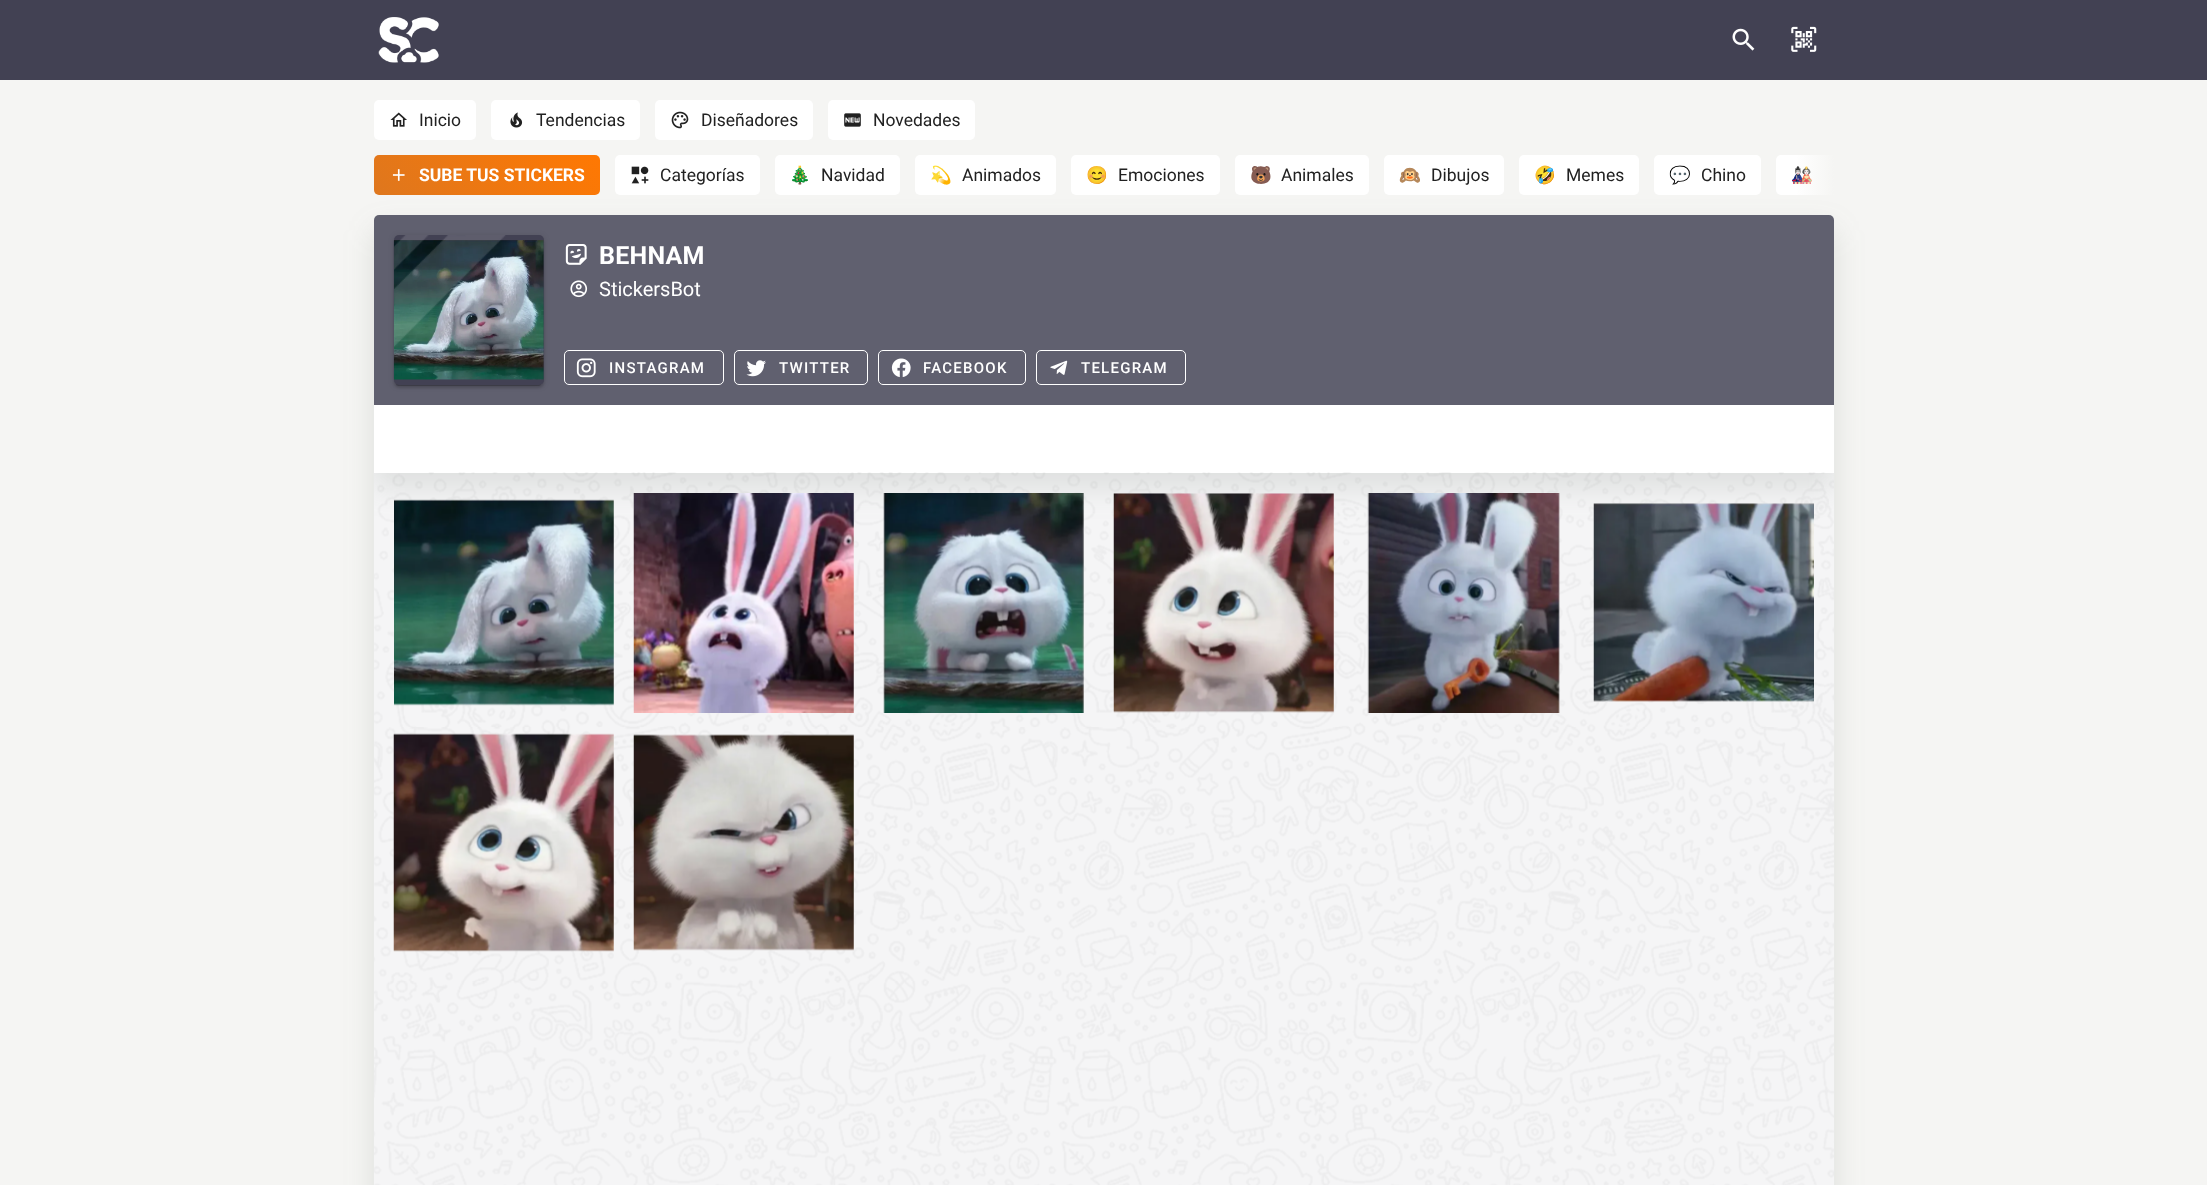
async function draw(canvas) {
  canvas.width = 2207;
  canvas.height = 1185;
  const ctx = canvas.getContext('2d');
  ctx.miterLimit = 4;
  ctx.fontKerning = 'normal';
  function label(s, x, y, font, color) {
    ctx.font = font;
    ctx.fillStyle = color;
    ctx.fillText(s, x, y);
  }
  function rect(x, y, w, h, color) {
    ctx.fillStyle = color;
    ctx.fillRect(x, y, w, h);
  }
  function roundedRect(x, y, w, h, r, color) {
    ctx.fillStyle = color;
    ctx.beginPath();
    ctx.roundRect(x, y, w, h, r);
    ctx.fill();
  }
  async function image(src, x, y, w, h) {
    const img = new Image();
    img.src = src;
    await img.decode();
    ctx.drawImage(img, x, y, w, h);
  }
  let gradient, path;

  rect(0, 0, 2207, 1185, '#f5f5f3');
  rect(0, 0, 2207, 80, '#424153');
  await image('assets/img1.png', 378, 17, 61, 46);
  await image('assets/img2.png', 1732, 28, 23, 23);
  await image('assets/img3.png', 1791, 26, 26, 26);
  roundedRect(374, 100, 102, 40, 5, '#fff');
  await image('assets/img4.png', 390, 112, 17, 15);
  label('Inicio', 419, 126, '17.5px Roboto', '#212121');
  roundedRect(491, 100, 149, 40, 5, '#fff');
  await image('assets/img5.png', 510, 112, 13, 16);
  label('Tendencias', 536, 126, '17.5px Roboto', '#212121');
  roundedRect(655, 100, 158, 40, 5, '#fff');
  await image('assets/img6.png', 671, 111, 18, 18);
  label('Diseñadores', 701, 126, '17.5px Roboto', '#212121');
  roundedRect(828, 100, 147, 40, 5, '#fff');
  await image('assets/img7.png', 844, 113, 17, 14);
  label('Novedades', 873, 126, '17.5px Roboto', '#212121');
  ctx.fillStyle = '#666e6229';
  ctx.filter = 'blur(15px)';
  ctx.beginPath();
  ctx.roundRect(374, 230, 1460, 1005, 5);
  ctx.fill();
  ctx.filter = 'none';
  gradient = ctx.createLinearGradient(420, 242, 553, 108);
  gradient.addColorStop(0, '#de771e');
  gradient.addColorStop(1, '#ff7802');
  ctx.fillStyle = gradient;
  ctx.beginPath();
  ctx.roundRect(374, 155, 226, 40, 5);
  ctx.fill();
  await image('assets/img8.png', 392, 169, 13, 12);
  label('SUBE TUS STICKERS', 419, 181, 'bold 17.5px Roboto', '#fff');
  roundedRect(615, 155, 145, 40, 5, '#fff');
  await image('assets/img9.png', 631, 166, 18, 18);
  label('Categorías', 660, 181, '17.5px Roboto', '#212121');
  roundedRect(775, 155, 125, 40, 5, '#fff');
  label('🎄', 789, 181, '17.5px Noto Color Emoji', '#212121');
  label('Navidad', 821, 181, '17.5px Roboto', '#212121');
  roundedRect(915, 155, 141, 40, 5, '#fff');
  label('💫', 930, 181, '17.5px Noto Color Emoji', '#212121');
  label('Animados', 962, 181, '17.5px Roboto', '#212121');
  roundedRect(1071, 155, 149, 40, 5, '#fff');
  label('😊', 1086, 181, '17.5px Noto Color Emoji', '#212121');
  label('Emociones', 1118, 181, '17.5px Roboto', '#212121');
  roundedRect(1235, 155, 134, 40, 5, '#fff');
  label('🐻', 1250, 181, '17.5px Noto Color Emoji', '#212121');
  label('Animales', 1281, 181, '17.5px Roboto', '#212121');
  roundedRect(1384, 155, 120, 40, 5, '#fff');
  label('🙉', 1399, 181, '17.5px Noto Color Emoji', '#212121');
  label('Dibujos', 1431, 181, '17.5px Roboto', '#212121');
  roundedRect(1519, 155, 120, 40, 5, '#fff');
  label('🤣', 1534, 181, '17.5px Noto Color Emoji', '#212121');
  label('Memes', 1566, 181, '17.5px Roboto', '#212121');
  roundedRect(1654, 155, 107, 40, 5, '#fff');
  label('💬', 1669, 181, '17.5px Noto Color Emoji', '#212121');
  label('Chino', 1701, 181, '17.5px Roboto', '#212121');
  ctx.fillStyle = '#fff';
  ctx.beginPath();
  ctx.roundRect(1776, 155, 58, 40, [5, 0, 0, 5]);
  ctx.fill();
  label('🎎', 1791, 181, '17.5px Noto Color Emoji', '#212121');
  gradient = ctx.createLinearGradient(1796, 175, 1834, 175);
  gradient.addColorStop(0, '#f5f5f300');
  gradient.addColorStop(1, '#f5f5f3');
  ctx.fillStyle = gradient;
  ctx.fillRect(1797, 155, 37, 40);
  roundedRect(374, 215, 1460, 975, 5, '#fff');
  ctx.save();
  ctx.beginPath();
  ctx.roundRect(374, 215, 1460, 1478, 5);
  ctx.clip();
  path = new Path2D('M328 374H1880V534H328ZM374 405H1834V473H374Z');
  ctx.clip(path, 'evenodd');
  ctx.fillStyle = '#666e6229';
  ctx.filter = 'blur(15px)';
  ctx.beginPath();
  ctx.rect(374, 420, 1460, 68);
  ctx.fill();
  ctx.filter = 'none';
  ctx.restore();
  ctx.fillStyle = '#424153d6';
  ctx.beginPath();
  ctx.roundRect(374, 215, 1460, 190, [5, 5, 0, 0]);
  ctx.fill();
  ctx.fillStyle = '#0000001f';
  ctx.filter = 'blur(3px)';
  ctx.beginPath();
  ctx.roundRect(394, 236, 150, 150, 5);
  ctx.fill();
  ctx.filter = 'none';
  ctx.fillStyle = '#00000024';
  ctx.filter = 'blur(1px)';
  ctx.beginPath();
  ctx.roundRect(394, 238, 150, 150, 5);
  ctx.fill();
  ctx.filter = 'none';
  ctx.fillStyle = '#00000033';
  ctx.filter = 'blur(0.5px)';
  ctx.beginPath();
  ctx.roundRect(396, 241, 145, 145, 2.5);
  ctx.fill();
  ctx.filter = 'none';
  roundedRect(394, 235, 150, 150, 5, '#424153');
  await image('assets/img11.png', 393, 240, 151, 140);
  await image('assets/img10.png', 394, 235, 112, 112);
  await image('assets/img12.png', 565, 244, 22, 21);
  ctx.letterSpacing = '0.25px';
  label('BEHNAM', 599, 264, 'bold 25px Roboto', '#fff');
  await image('assets/img13.png', 570, 280, 18, 18);
  ctx.letterSpacing = '0px';
  label('StickersBot', 599, 296, '20px Roboto', '#fff');
  ctx.beginPath();
  ctx.roundRect(564.5, 350.5, 159, 34, 4.5);
  ctx.strokeStyle = '#fff';
  ctx.stroke();
  await image('assets/img14.png', 576, 358, 20, 20);
  ctx.letterSpacing = '1.25px';
  label('INSTAGRAM', 609, 373, '500 15px Roboto', '#fff');
  ctx.beginPath();
  ctx.roundRect(734.5, 350.5, 133, 34, 4.5);
  ctx.stroke();
  await image('assets/img15.png', 746, 360, 20, 17);
  label('TWITTER', 779, 373, '500 15px Roboto', '#fff');
  ctx.beginPath();
  ctx.roundRect(878.5, 350.5, 147, 34, 4.5);
  ctx.stroke();
  await image('assets/img16.png', 891, 358, 20, 20);
  label('FACEBOOK', 923, 373, '500 15px Roboto', '#fff');
  ctx.beginPath();
  ctx.roundRect(1036.5, 350.5, 149, 34, 4.5);
  ctx.stroke();
  await image('assets/img17.png', 1050, 360, 18, 15);
  label('TELEGRAM', 1081, 373, '500 15px Roboto', '#fff');
  rect(374, 473, 1460, 712, '#4241530d');
  await image('assets/img18.png', 374, 472, 1460, 713);
  await image('assets/img19.png', 394, 499, 220, 207);
  await image('assets/img20.png', 633, 493, 221, 220);
  await image('assets/img21.png', 883, 493, 201, 220);
  await image('assets/img22.png', 1113, 493, 221, 220);
  await image('assets/img23.png', 1367, 493, 193, 220);
  await image('assets/img24.png', 1593, 503, 221, 199);
  await image('assets/img25.png', 393, 733, 221, 219);
  await image('assets/img26.png', 633, 734, 221, 217);
}

draw(document.querySelector('canvas'));
